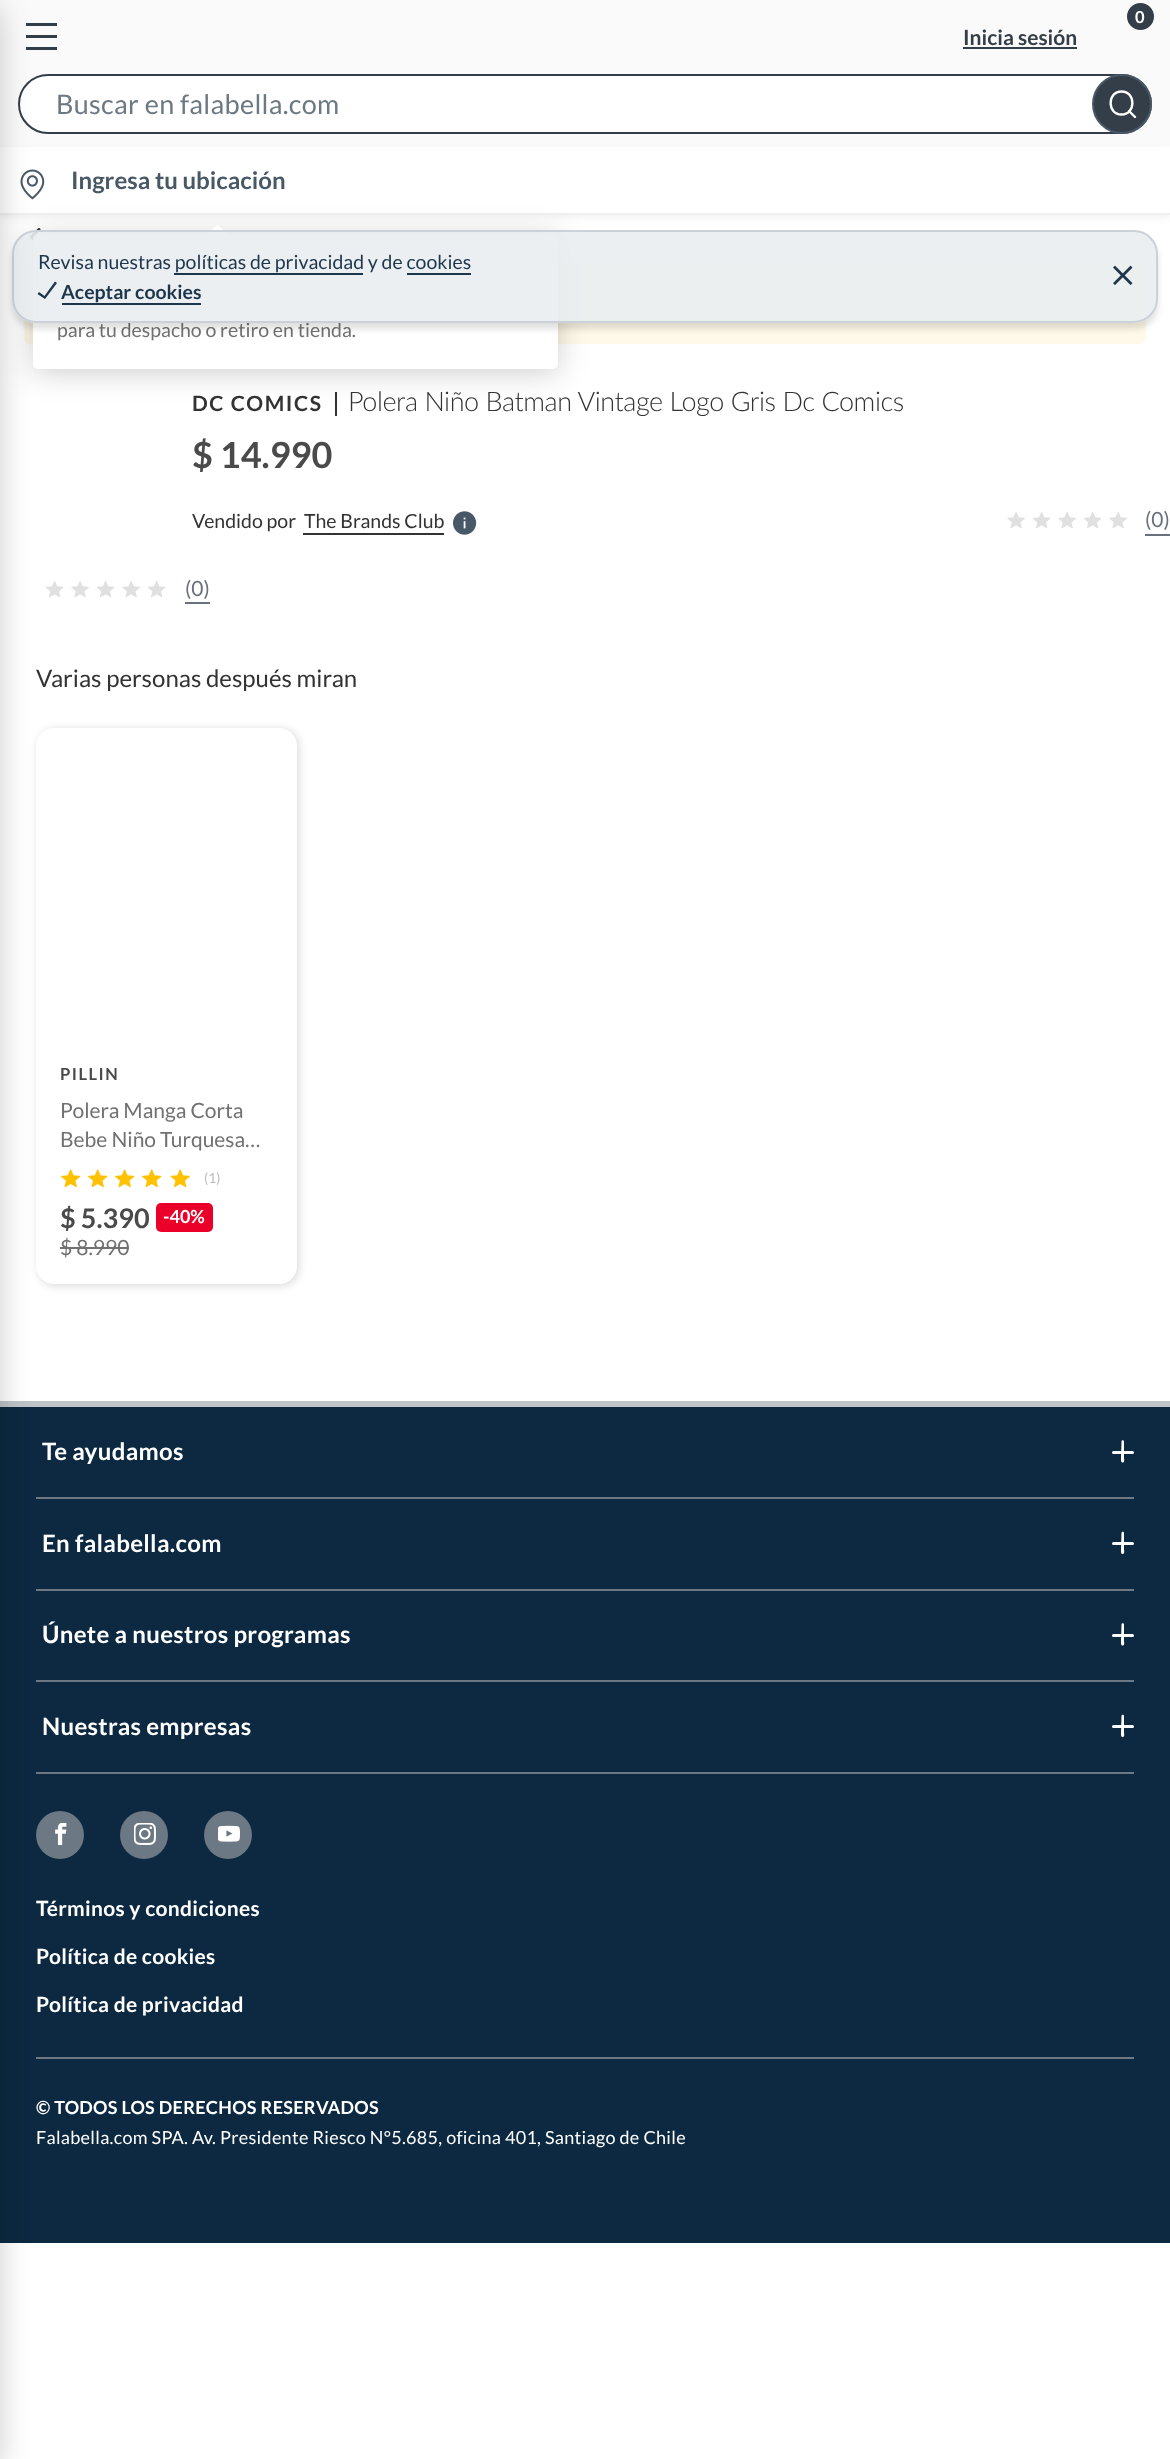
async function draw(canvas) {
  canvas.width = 1170;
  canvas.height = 2459;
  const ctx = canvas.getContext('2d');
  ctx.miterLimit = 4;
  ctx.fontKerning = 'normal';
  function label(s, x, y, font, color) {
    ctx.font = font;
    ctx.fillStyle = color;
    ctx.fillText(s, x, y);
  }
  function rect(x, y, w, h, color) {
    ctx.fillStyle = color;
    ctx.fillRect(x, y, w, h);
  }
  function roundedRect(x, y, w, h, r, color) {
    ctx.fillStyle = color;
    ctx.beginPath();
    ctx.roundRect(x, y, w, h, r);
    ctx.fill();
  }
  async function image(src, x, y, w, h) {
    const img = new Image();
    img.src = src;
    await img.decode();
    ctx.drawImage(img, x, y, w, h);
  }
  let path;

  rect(0, 0, 1170, 2459, '#fff');
  rect(0, 0, 1170, 147, '#fafafa');
  rect(26, 35, 31, 3, '#343e49');
  rect(26, 23, 31, 3, '#343e49');
  rect(26, 47, 31, 3, '#343e49');
  ctx.fillStyle = '#fff';
  ctx.beginPath();
  ctx.roundRect(19, 75, 1132, 58, 29);
  ctx.fill();
  ctx.strokeStyle = '#343e49';
  ctx.lineWidth = 2;
  ctx.stroke();
  ctx.fillStyle = '#0000000d';
  ctx.filter = 'blur(3px)';
  ctx.beginPath();
  ctx.rect(0, 150, 1170, 68);
  ctx.fill();
  ctx.filter = 'none';
  rect(0, 147, 1170, 66, '#fff');
  rect(0, 213, 1170, 2, '#f0f0f0');
  await image('assets/img1.png', 20, 169, 25, 31);
  await image('assets/img3.png', 30, 228, 11, 13);
  roundedRect(24, 263, 1122, 81, 6, '#fff9e9');
  rect(335, 392, 2, 24, '#333');
  ctx.fillStyle = '#00000033';
  ctx.filter = 'blur(15px)';
  ctx.beginPath();
  ctx.roundRect(33, 237, 525, 135, 5);
  ctx.fill();
  ctx.filter = 'none';
  roundedRect(33, 234, 525, 135, 5, '#fff');
  path = new Path2D('M229.5 235.5H205.5L217.5 225Z');
  ctx.fill(path);
  label('para tu despacho o retiro en tienda.', 57, 337, '19.5px Lato', '#717171');
  ctx.save();
  path = new Path2D('M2 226H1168V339H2ZM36 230H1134C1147.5 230 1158 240.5 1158 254V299C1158 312.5 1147.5 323 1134 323H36C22.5 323 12 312.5 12 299V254C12 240.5 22.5 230 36 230Z');
  ctx.clip(path, 'evenodd');
  ctx.fillStyle = '#0000001f';
  ctx.filter = 'blur(3px)';
  ctx.beginPath();
  ctx.roundRect(12, 236, 1146, 93, 24);
  ctx.fill();
  ctx.filter = 'none';
  ctx.restore();
  ctx.fillStyle = '#e9edf1e6';
  ctx.beginPath();
  ctx.roundRect(13, 231, 1144, 91, 23);
  ctx.fill();
  ctx.strokeStyle = '#cad1d9';
  ctx.stroke();
  ctx.fillStyle = '#1e364b';
  path = new Path2D('M44.5 296L55 281.5L57 283L45 299L37.5 294L39 292Z');
  ctx.fill(path);
  await image('assets/img7.png', 45, 581, 19, 17);
  ctx.fillStyle = '#00000024';
  ctx.filter = 'blur(4px)';
  ctx.beginPath();
  ctx.roundRect(38, 729, 261, 557, 18);
  ctx.fill();
  ctx.filter = 'none';
  roundedRect(36, 728, 261, 556, 18, '#fff');
  rect(0, 1407, 1170, 836, '#0c2941');
  rect(0, 1401, 1170, 6, '#bfc4c9');
  rect(36, 1497, 1098, 2, '#6c7883');
  rect(36, 1589, 1098, 2, '#6c7883');
  rect(36, 1680, 1098, 2, '#6c7883');
  rect(36, 1772, 1098, 2, '#6c7883');
  ctx.beginPath();
  ctx.arc(60, 1835, 24, 0, 2 * Math.PI);
  ctx.fill();
  rect(36, 2057, 1098, 2, '#6c7883');
  ctx.fillStyle = '#00000033';
  ctx.filter = 'blur(15px)';
  ctx.beginPath();
  ctx.rect(-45, 8, 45, 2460);
  ctx.fill();
  ctx.filter = 'none';
  ctx.fillStyle = '#343e49';
  ctx.beginPath();
  ctx.arc(1140.5, 16.5, 12.5, 0, 2 * Math.PI);
  ctx.fill();
  ctx.strokeStyle = '#343e49';
  ctx.stroke();
  label('0', 1135, 23, 'bold 16.5px Lato', '#fff');
  label('Inicia sesión', 963, 45, 'bold 21px Lato', '#343e49');
  rect(963, 47, 114, 2, '#343e49');
  ctx.letterSpacing = '0.3px';
  label('Buscar en falabella.com', 56, 114, '27px Lato', '#6c7883');
  ctx.fillStyle = '#343e49';
  ctx.beginPath();
  ctx.arc(1122, 104, 29, 0, 2 * Math.PI);
  ctx.fill();
  ctx.strokeStyle = '#495867';
  ctx.stroke();
  path = new Path2D('M1121.5 114.5C1136 114.5 1136 91.5 1121.5 91.5C1107 91.5 1107 114.5 1121.5 114.5ZM1135 117L1129 111');
  ctx.strokeStyle = '#fff';
  ctx.lineWidth = 2.4;
  ctx.lineCap = 'round';
  ctx.lineJoin = 'round';
  ctx.stroke(path);
  ctx.letterSpacing = '0px';
  label('Ingresa tu ubicación', 71, 189, 'bold 24px Lato', '#495867');
  label('Revisa nuestras políticas de privacidad y de cookies', 38, 269, '19.5px Lato', '#1e364b');
  rect(174, 273, 189, 2, '#1e364b');
  rect(407, 273, 64, 2, '#1e364b');
  label('Aceptar cookies', 61, 299, 'bold 19.5px Lato', '#1e364b');
  rect(62, 303, 139, 2, '#1e364b');
  await image('assets/img2.png', 1113, 265, 20, 20);
  ctx.letterSpacing = '1.6px';
  label('DC COMICS', 192, 411, 'bold 21px Lato', '#333');
  ctx.letterSpacing = '-0.45px';
  label('Polera Niño Batman Vintage Logo Gris Dc Comics', 348, 411, '300 27px Lato', '#333');
  ctx.letterSpacing = '0px';
  label('$ 14.990', 192, 468, 'bold 36px Lato', '#4a4a4a');
  label('Vendido por', 192, 528, '19.5px Lato', '#333');
  label('The Brands Club', 304, 528, '19.5px Lato', '#333');
  rect(303, 533, 141, 2, '#333');
  await image('assets/img4.png', 453, 511, 24, 24);
  await image('assets/img5.png', 1007, 512, 18, 17);
  await image('assets/img6.png', 1032, 512, 18, 17);
  await image('assets/img5.png', 1058, 512, 18, 17);
  await image('assets/img6.png', 1083, 512, 18, 17);
  await image('assets/img5.png', 1109, 512, 18, 17);
  rect(1145, 534, 25, 2, '#68717d');
  label('(0)', 1145, 527, '21px Lato', '#68717d');
  await image('assets/img5.png', 71, 581, 18, 17);
  await image('assets/img7.png', 96, 581, 19, 17);
  await image('assets/img5.png', 122, 581, 18, 17);
  await image('assets/img7.png', 147, 581, 19, 17);
  rect(185, 602, 25, 2, '#68717d');
  label('(0)', 185, 596, '21px Lato', '#68717d');
  label('Varias personas después miran', 36, 687, '24px Lato', '#333');
  ctx.letterSpacing = '1.5px';
  label('PILLIN', 60, 1080, 'bold 16.5px Lato', '#4a4a4a');
  ctx.letterSpacing = '0px';
  label('Polera Manga Corta', 60, 1118, '21px Lato', '#717171');
  label('Bebe Niño Turquesa…', 60, 1147, '21px Lato', '#717171');
  await image('assets/img8.png', 61, 1169, 20, 19);
  await image('assets/img8.png', 88, 1169, 20, 19);
  await image('assets/img8.png', 115, 1169, 20, 19);
  await image('assets/img8.png', 142, 1169, 20, 19);
  await image('assets/img9.png', 170, 1169, 20, 19);
  label('(1)', 204, 1183, '14px Lato', '#bbb');
  label('$ 5.390', 60, 1228, 'bold 27px Lato', '#4a4a4a');
  roundedRect(156, 1203, 57, 29, 5, '#eb0029');
  label('-40%', 163, 1223, 'bold 18px Lato', '#fff');
  label('$ 8.990', 60, 1255, '21px Lato', '#717171');
  rect(60, 1247, 69, 2, '#717171');
  ctx.letterSpacing = '0.3px';
  label('Te ayudamos', 42, 1460, 'bold 24px Lato', '#fff');
  roundedRect(1112, 1451, 22, 3, 1.5, '#fff');
  path = new Path2D('M1124 1441.5V1458C1124 1459 1125 1462 1123 1462.5C1120.5 1463 1121 1459 1121 1458L1121.5 1441.5C1121.5 1439.5 1124 1440 1124 1441.5Z');
  ctx.fill(path);
  label('En falabella.com', 42, 1552, 'bold 24px Lato', '#fff');
  roundedRect(1112, 1542, 22, 3, 1.5, '#fff');
  path = new Path2D('M1124 1533V1549.5C1124 1550.5 1125 1553.5 1123 1554C1120.5 1554.5 1121 1550.5 1121 1549.5L1121.5 1533C1121.5 1531 1124 1531.5 1124 1533Z');
  ctx.fill(path);
  label('Únete a nuestros programas', 42, 1643, 'bold 24px Lato', '#fff');
  roundedRect(1112, 1634, 22, 3, 1.5, '#fff');
  path = new Path2D('M1124 1624.5V1641C1124 1642 1125 1645 1123 1645.5C1120.5 1646 1121 1642 1121 1641L1121.5 1624.5C1121.5 1622.5 1124 1623 1124 1624.5Z');
  ctx.fill(path);
  label('Nuestras empresas', 42, 1735, 'bold 24px Lato', '#fff');
  roundedRect(1112, 1725, 22, 3, 1.5, '#fff');
  path = new Path2D('M1124 1716V1732.5C1124 1733.5 1125 1736.5 1123 1737C1120.5 1737.5 1121 1733.5 1121 1732.5L1121.5 1716C1121.5 1714 1124 1714.5 1124 1716Z');
  ctx.fill(path);
  await image('assets/img10.png', 55, 1823, 12, 22);
  ctx.fillStyle = '#6c7883';
  ctx.beginPath();
  ctx.arc(144, 1835, 24, 0, 2 * Math.PI);
  ctx.fill();
  await image('assets/img11.png', 134, 1823, 22, 22);
  ctx.beginPath();
  ctx.arc(228, 1835, 24, 0, 2 * Math.PI);
  ctx.fill();
  await image('assets/img12.png', 218, 1825, 22, 17);
  label('Términos y condiciones', 36, 1916, 'bold 21px Lato', '#fff');
  label('Política de cookies', 36, 1964, 'bold 21px Lato', '#fff');
  label('Política de privacidad', 36, 2012, 'bold 21px Lato', '#fff');
  label('© TODOS LOS DERECHOS RESERVADOS', 36, 2114, 'bold 18px Lato', '#fff');
  label('Falabella.com SPA. Av. Presidente Riesco N°5.685, oficina 401, Santiago de Chile', 36, 2144, '18px Lato', '#fff');
}

draw(document.querySelector('canvas'));
